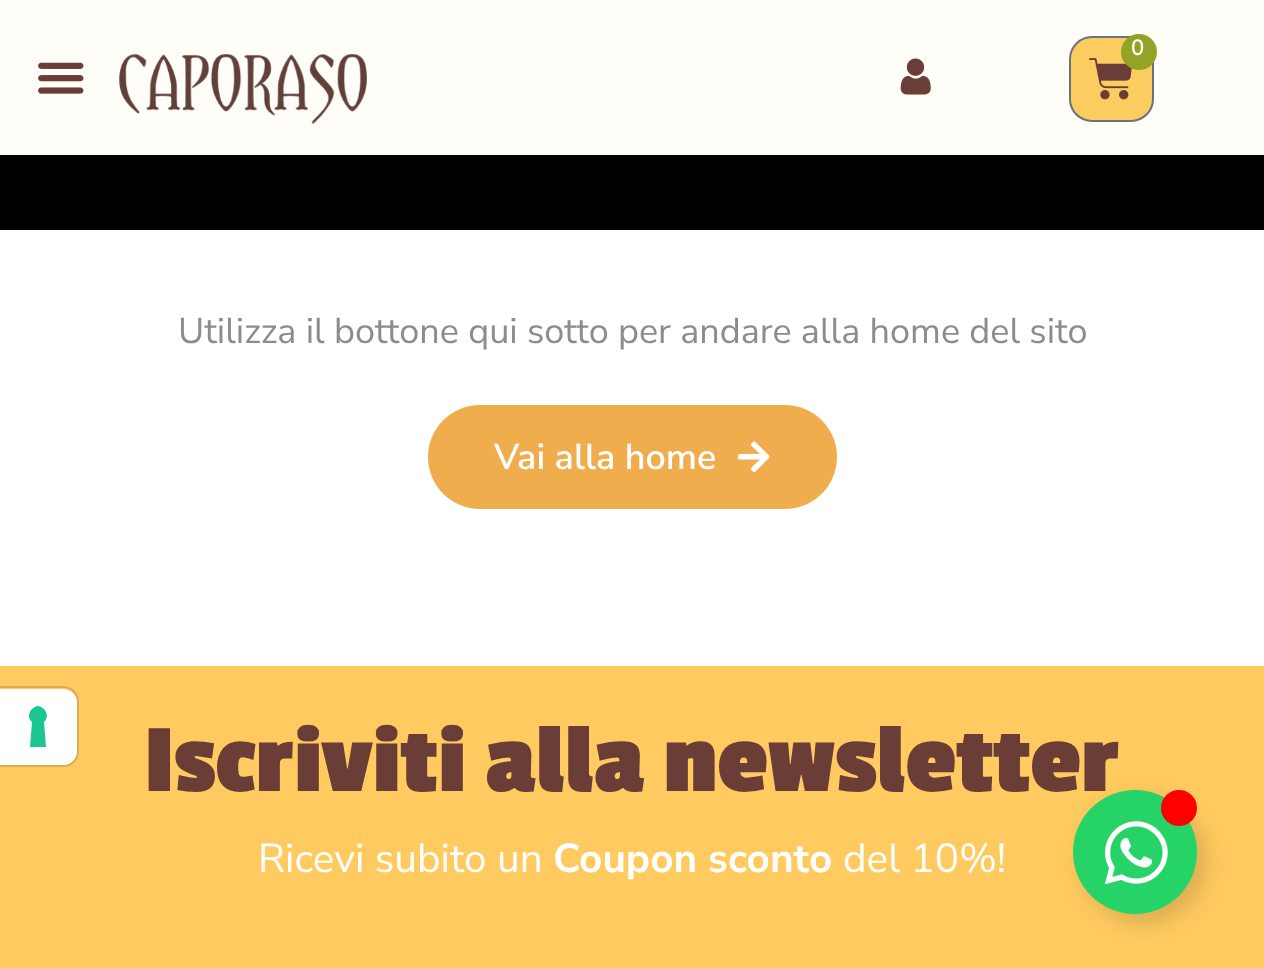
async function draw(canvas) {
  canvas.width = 1264;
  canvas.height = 968;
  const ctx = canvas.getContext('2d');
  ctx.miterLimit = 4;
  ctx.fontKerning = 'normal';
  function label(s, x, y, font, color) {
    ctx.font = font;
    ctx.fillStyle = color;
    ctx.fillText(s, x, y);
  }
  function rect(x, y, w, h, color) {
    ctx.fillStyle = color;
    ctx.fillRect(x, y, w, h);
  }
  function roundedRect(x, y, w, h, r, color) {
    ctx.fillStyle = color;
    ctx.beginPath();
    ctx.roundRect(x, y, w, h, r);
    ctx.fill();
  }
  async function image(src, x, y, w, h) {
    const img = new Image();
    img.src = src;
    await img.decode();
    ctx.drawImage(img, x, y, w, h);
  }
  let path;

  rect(0, 0, 1264, 968, '#fff');
  rect(0, 0, 1264, 155, '#fffdf7');
  ctx.fillStyle = '#fbcc60';
  ctx.beginPath();
  ctx.roundRect(1070, 37, 83, 84, 22);
  ctx.fill();
  ctx.strokeStyle = '#69727d';
  ctx.lineWidth = 2;
  ctx.stroke();
  await image('assets/img1.png', 1089, 58, 43, 42);
  ctx.fillStyle = '#92a328';
  ctx.beginPath();
  ctx.arc(1139, 52, 18, 0, 2 * Math.PI);
  ctx.fill();
  label('0', 1131, 55, '600 22px Nunito Sans', '#fff');
  await image('assets/img2.png', 900, 58, 31, 37);
  await image('assets/img3.png', 38, 62, 46, 32);
  await image('assets/img4.png', 119, 54, 248, 70);
  rect(0, 155, 1264, 75, '#000');
  label('Utilizza il bottone qui sotto per andare alla home del sito', 178, 343, '36px Nunito Sans', '#8c8c8c');
  roundedRect(428, 405, 409, 104, 52, '#f0ad4e');
  label('Vai alla home', 494, 469, '600 36px Nunito Sans', '#fff');
  await image('assets/img5.png', 738, 441, 32, 32);
  rect(0, 666, 1264, 302, '#ffcb60');
  path = new Path2D('M-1 687H63C71.5 687 78 693.5 78 702V751C78 759.5 71.5 766 63 766H-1Z');
  ctx.strokeStyle = '#d9ad52';
  ctx.stroke(path);
  ctx.fillStyle = '#fff';
  ctx.beginPath();
  ctx.roundRect(0, 689, 77, 76, [0, 14, 14, 0]);
  ctx.fill();
  ctx.fillStyle = '#1cc691';
  path = new Path2D('M38 706C46 707 50 717 44 722L46 747H30L32 722C26 717 30 707 38 706Z');
  ctx.fill(path, 'evenodd');
  label('Iscriviti alla newsletter', 144, 791, 'bold 101.25px Passion One', '#6b3d37');
  label('Ricevi subito un', 258, 872, '40.5px Nunito Sans', '#fff');
  label('Coupon sconto', 553, 872, 'bold 40.5px Nunito Sans', '#fff');
  label('del 10%!', 843, 872, '40.5px Nunito Sans', '#fff');
  ctx.fillStyle = '#00000026';
  ctx.filter = 'blur(11px)';
  ctx.beginPath();
  ctx.roundRect(1082, 799, 124, 124, 62);
  ctx.fill();
  ctx.filter = 'none';
  ctx.fillStyle = '#25d366';
  ctx.beginPath();
  ctx.arc(1135, 852, 62, 0, 2 * Math.PI);
  ctx.fill();
  await image('assets/img6.png', 1104, 821, 64, 64);
  ctx.fillStyle = '#f00';
  ctx.beginPath();
  ctx.arc(1179, 808, 18, 0, 2 * Math.PI);
  ctx.fill();
}

draw(document.querySelector('canvas'));
